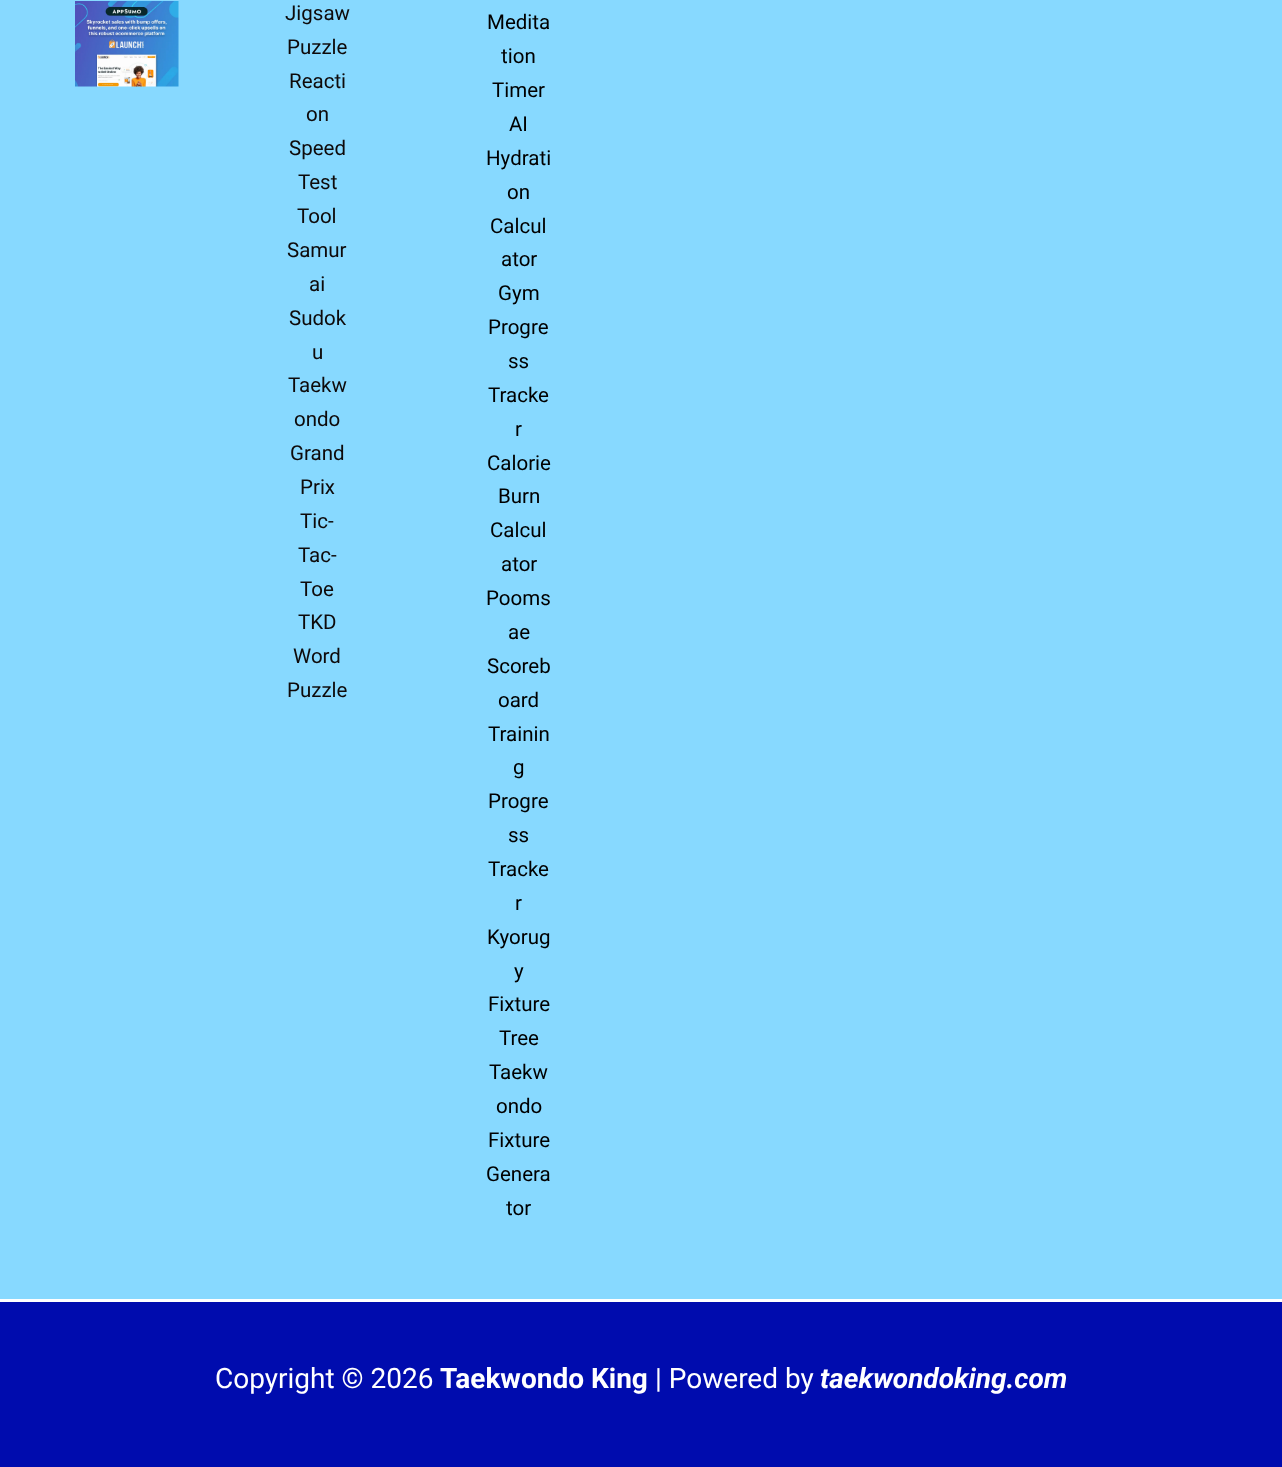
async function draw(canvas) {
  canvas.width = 1282;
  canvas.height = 1467;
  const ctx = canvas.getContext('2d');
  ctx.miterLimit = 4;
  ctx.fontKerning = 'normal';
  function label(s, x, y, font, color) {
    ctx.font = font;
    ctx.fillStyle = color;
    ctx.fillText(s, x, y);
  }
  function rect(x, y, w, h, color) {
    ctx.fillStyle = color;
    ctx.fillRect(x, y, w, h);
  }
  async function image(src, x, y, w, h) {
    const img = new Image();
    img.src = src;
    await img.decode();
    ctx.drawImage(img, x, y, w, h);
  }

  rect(0, 0, 1282, 1467, '#87d9ff');
  await image('assets/img1.png', 75, 1, 104, 86);
  label('Jigsaw', 285, 20, '20.5px Roboto', '#0e0a0a');
  label('Puzzle', 287, 54, '20.5px Roboto', '#0e0a0a');
  label('Reacti', 289, 88, '20.5px Roboto', '#0e0a0a');
  label('on', 306, 121, '20.5px Roboto', '#0e0a0a');
  label('Speed', 289, 155, '20.5px Roboto', '#0e0a0a');
  label('Test', 298, 189, '20.5px Roboto', '#0e0a0a');
  label('Tool', 297, 223, '20.5px Roboto', '#0e0a0a');
  label('Samur', 287, 257, '20.5px Roboto', '#0e0a0a');
  label('ai', 309, 291, '20.5px Roboto', '#0e0a0a');
  label('Sudok', 289, 325, '20.5px Roboto', '#0e0a0a');
  label('u', 312, 359, '20.5px Roboto', '#0e0a0a');
  label('Taekw', 288, 392, '20.5px Roboto', '#0e0a0a');
  label('ondo', 294, 426, '20.5px Roboto', '#0e0a0a');
  label('Grand', 290, 460, '20.5px Roboto', '#0e0a0a');
  label('Prix', 300, 494, '20.5px Roboto', '#0e0a0a');
  label('Tic-', 300, 528, '20.5px Roboto', '#0e0a0a');
  label('Tac-', 298, 562, '20.5px Roboto', '#0e0a0a');
  label('Toe', 300, 596, '20.5px Roboto', '#0e0a0a');
  label('TKD', 298, 629, '20.5px Roboto', '#0e0a0a');
  label('Word', 293, 663, '20.5px Roboto', '#0e0a0a');
  label('Puzzle', 287, 697, '20.5px Roboto', '#0e0a0a');
  label('Medita', 487, 29, '20.5px Roboto', '#000');
  label('tion', 501, 63, '20.5px Roboto', '#000');
  label('Timer', 492, 97, '20.5px Roboto', '#000');
  label('AI', 509, 131, '20.5px Roboto', '#000');
  label('Hydrati', 486, 165, '20.5px Roboto', '#000');
  label('on', 507, 199, '20.5px Roboto', '#000');
  label('Calcul', 490, 233, '20.5px Roboto', '#000');
  label('ator', 501, 266, '20.5px Roboto', '#000');
  label('Gym', 498, 300, '20.5px Roboto', '#000');
  label('Progre', 488, 334, '20.5px Roboto', '#000');
  label('ss', 508, 368, '20.5px Roboto', '#000');
  label('Tracke', 488, 402, '20.5px Roboto', '#000');
  label('r', 515, 436, '20.5px Roboto', '#000');
  label('Calorie', 487, 470, '20.5px Roboto', '#000');
  label('Burn', 498, 503, '20.5px Roboto', '#000');
  label('Calcul', 490, 537, '20.5px Roboto', '#000');
  label('ator', 501, 571, '20.5px Roboto', '#000');
  label('Pooms', 486, 605, '20.5px Roboto', '#000');
  label('ae', 508, 639, '20.5px Roboto', '#000');
  label('Scoreb', 487, 673, '20.5px Roboto', '#000');
  label('oard', 498, 707, '20.5px Roboto', '#000');
  label('Trainin', 488, 741, '20.5px Roboto', '#000');
  label('g', 513, 774, '20.5px Roboto', '#000');
  label('Progre', 488, 808, '20.5px Roboto', '#000');
  label('ss', 508, 842, '20.5px Roboto', '#000');
  label('Tracke', 488, 876, '20.5px Roboto', '#000');
  label('r', 515, 910, '20.5px Roboto', '#000');
  label('Kyorug', 487, 944, '20.5px Roboto', '#000');
  label('y', 514, 978, '20.5px Roboto', '#000');
  label('Fixture', 488, 1011, '20.5px Roboto', '#000');
  label('Tree', 499, 1045, '20.5px Roboto', '#000');
  label('Taekw', 489, 1079, '20.5px Roboto', '#000');
  label('ondo', 496, 1113, '20.5px Roboto', '#000');
  label('Fixture', 488, 1147, '20.5px Roboto', '#000');
  label('Genera', 486, 1181, '20.5px Roboto', '#000');
  label('tor', 506, 1215, '20.5px Roboto', '#000');
  rect(0, 1302, 1282, 165, '#000cae');
  rect(0, 1299, 1282, 3, '#fff');
  label('Copyright © 2026', 215, 1388, '28px Roboto', '#fff');
  label('Taekwondo King', 440, 1388, 'bold 28px Roboto', '#fff');
  label('| Powered by', 655, 1388, '28px Roboto', '#fff');
  label('taekwondoking.com', 820, 1388, 'italic bold 28px Roboto', '#fff');
}

draw(document.querySelector('canvas'));
